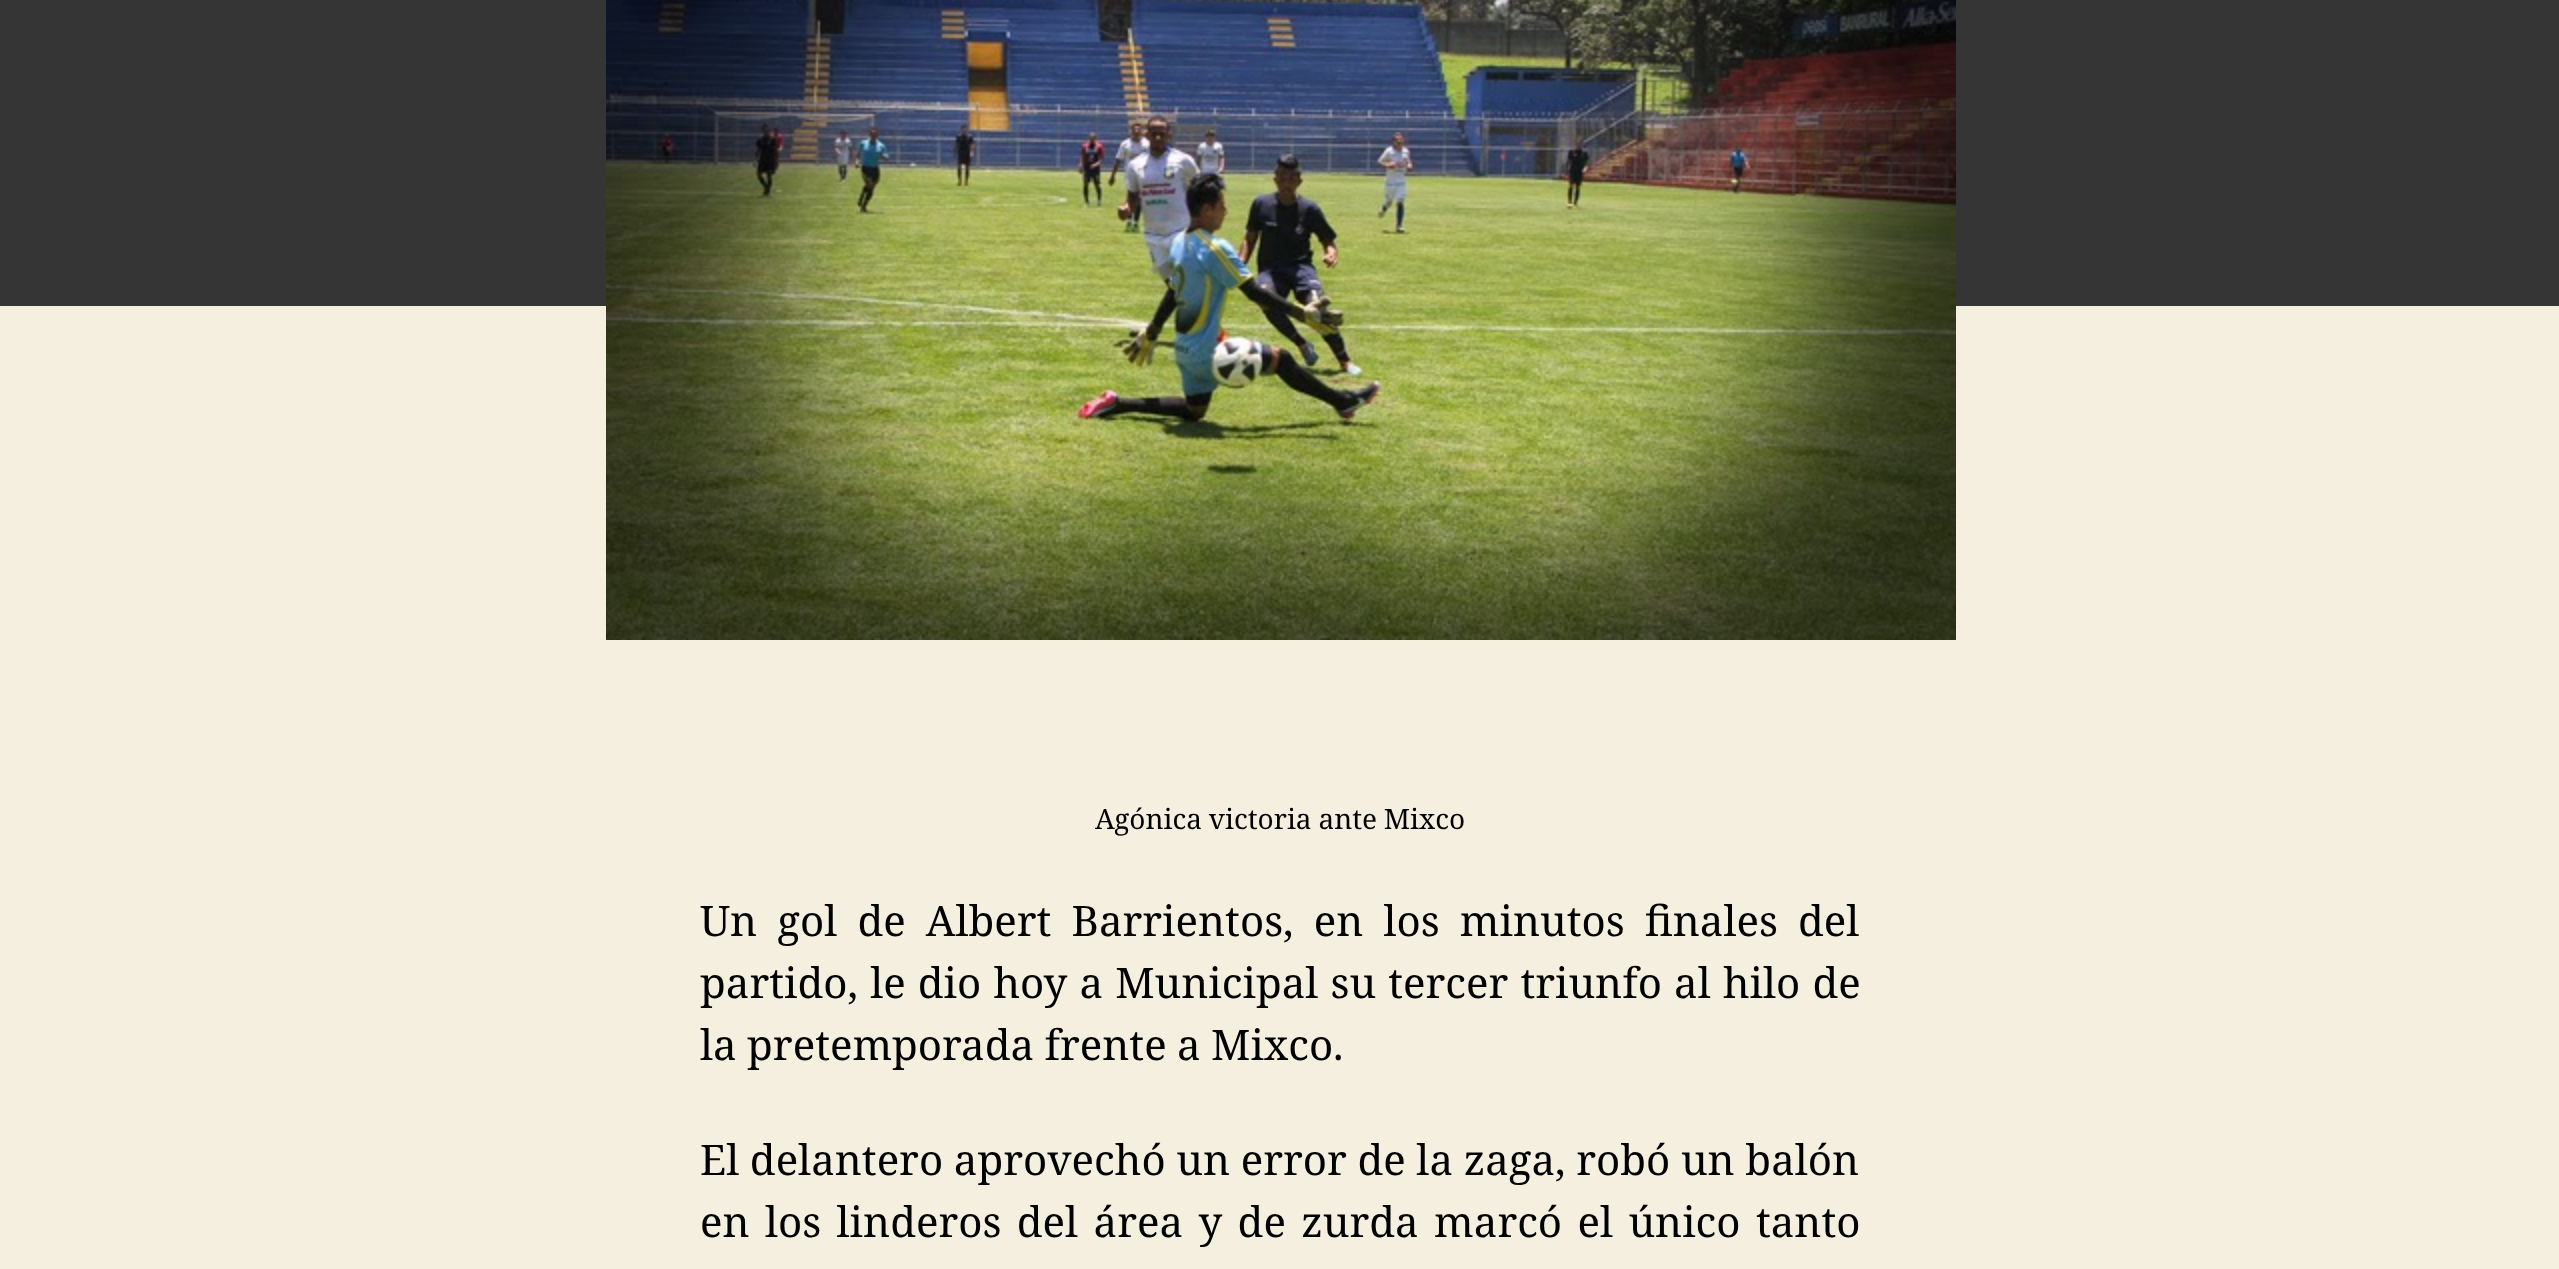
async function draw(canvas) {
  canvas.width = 2559;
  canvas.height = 1269;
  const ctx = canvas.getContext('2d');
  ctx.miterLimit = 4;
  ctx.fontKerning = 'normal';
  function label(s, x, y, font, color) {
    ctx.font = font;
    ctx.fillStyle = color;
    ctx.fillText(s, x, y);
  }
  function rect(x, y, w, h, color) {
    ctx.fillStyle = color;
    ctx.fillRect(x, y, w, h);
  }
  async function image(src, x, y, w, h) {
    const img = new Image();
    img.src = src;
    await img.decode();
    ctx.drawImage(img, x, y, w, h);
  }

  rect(0, 0, 2559, 1269, '#f5efe0');
  rect(0, 0, 2559, 306, '#353535');
  await image('assets/img1.png', 606, 0, 1350, 640);
  ctx.wordSpacing = '-0.5px';
  label('Agónica victoria ante Mixco', 1095, 829, '28px Noto Serif', '#000');
  ctx.wordSpacing = '9.25px';
  label('Un gol de Albert Barrientos, en los minutos finales del', 700, 936, '42px Noto Serif', '#000');
  ctx.wordSpacing = '1.25px';
  label('partido, le dio hoy a Municipal su tercer triunfo al hilo de', 700, 998, '42px Noto Serif', '#000');
  ctx.wordSpacing = '-0.5px';
  label('la pretemporada frente a Mixco.', 700, 1060, '42px Noto Serif', '#000');
  ctx.wordSpacing = '-0.25px';
  label('El delantero aprovechó un error de la zaga, robó un balón', 700, 1175, '42px Noto Serif', '#000');
  ctx.wordSpacing = '4.5px';
  label('en los linderos del área y de zurda marcó el único tanto', 700, 1237, '42px Noto Serif', '#000');
}

draw(document.querySelector('canvas'));
